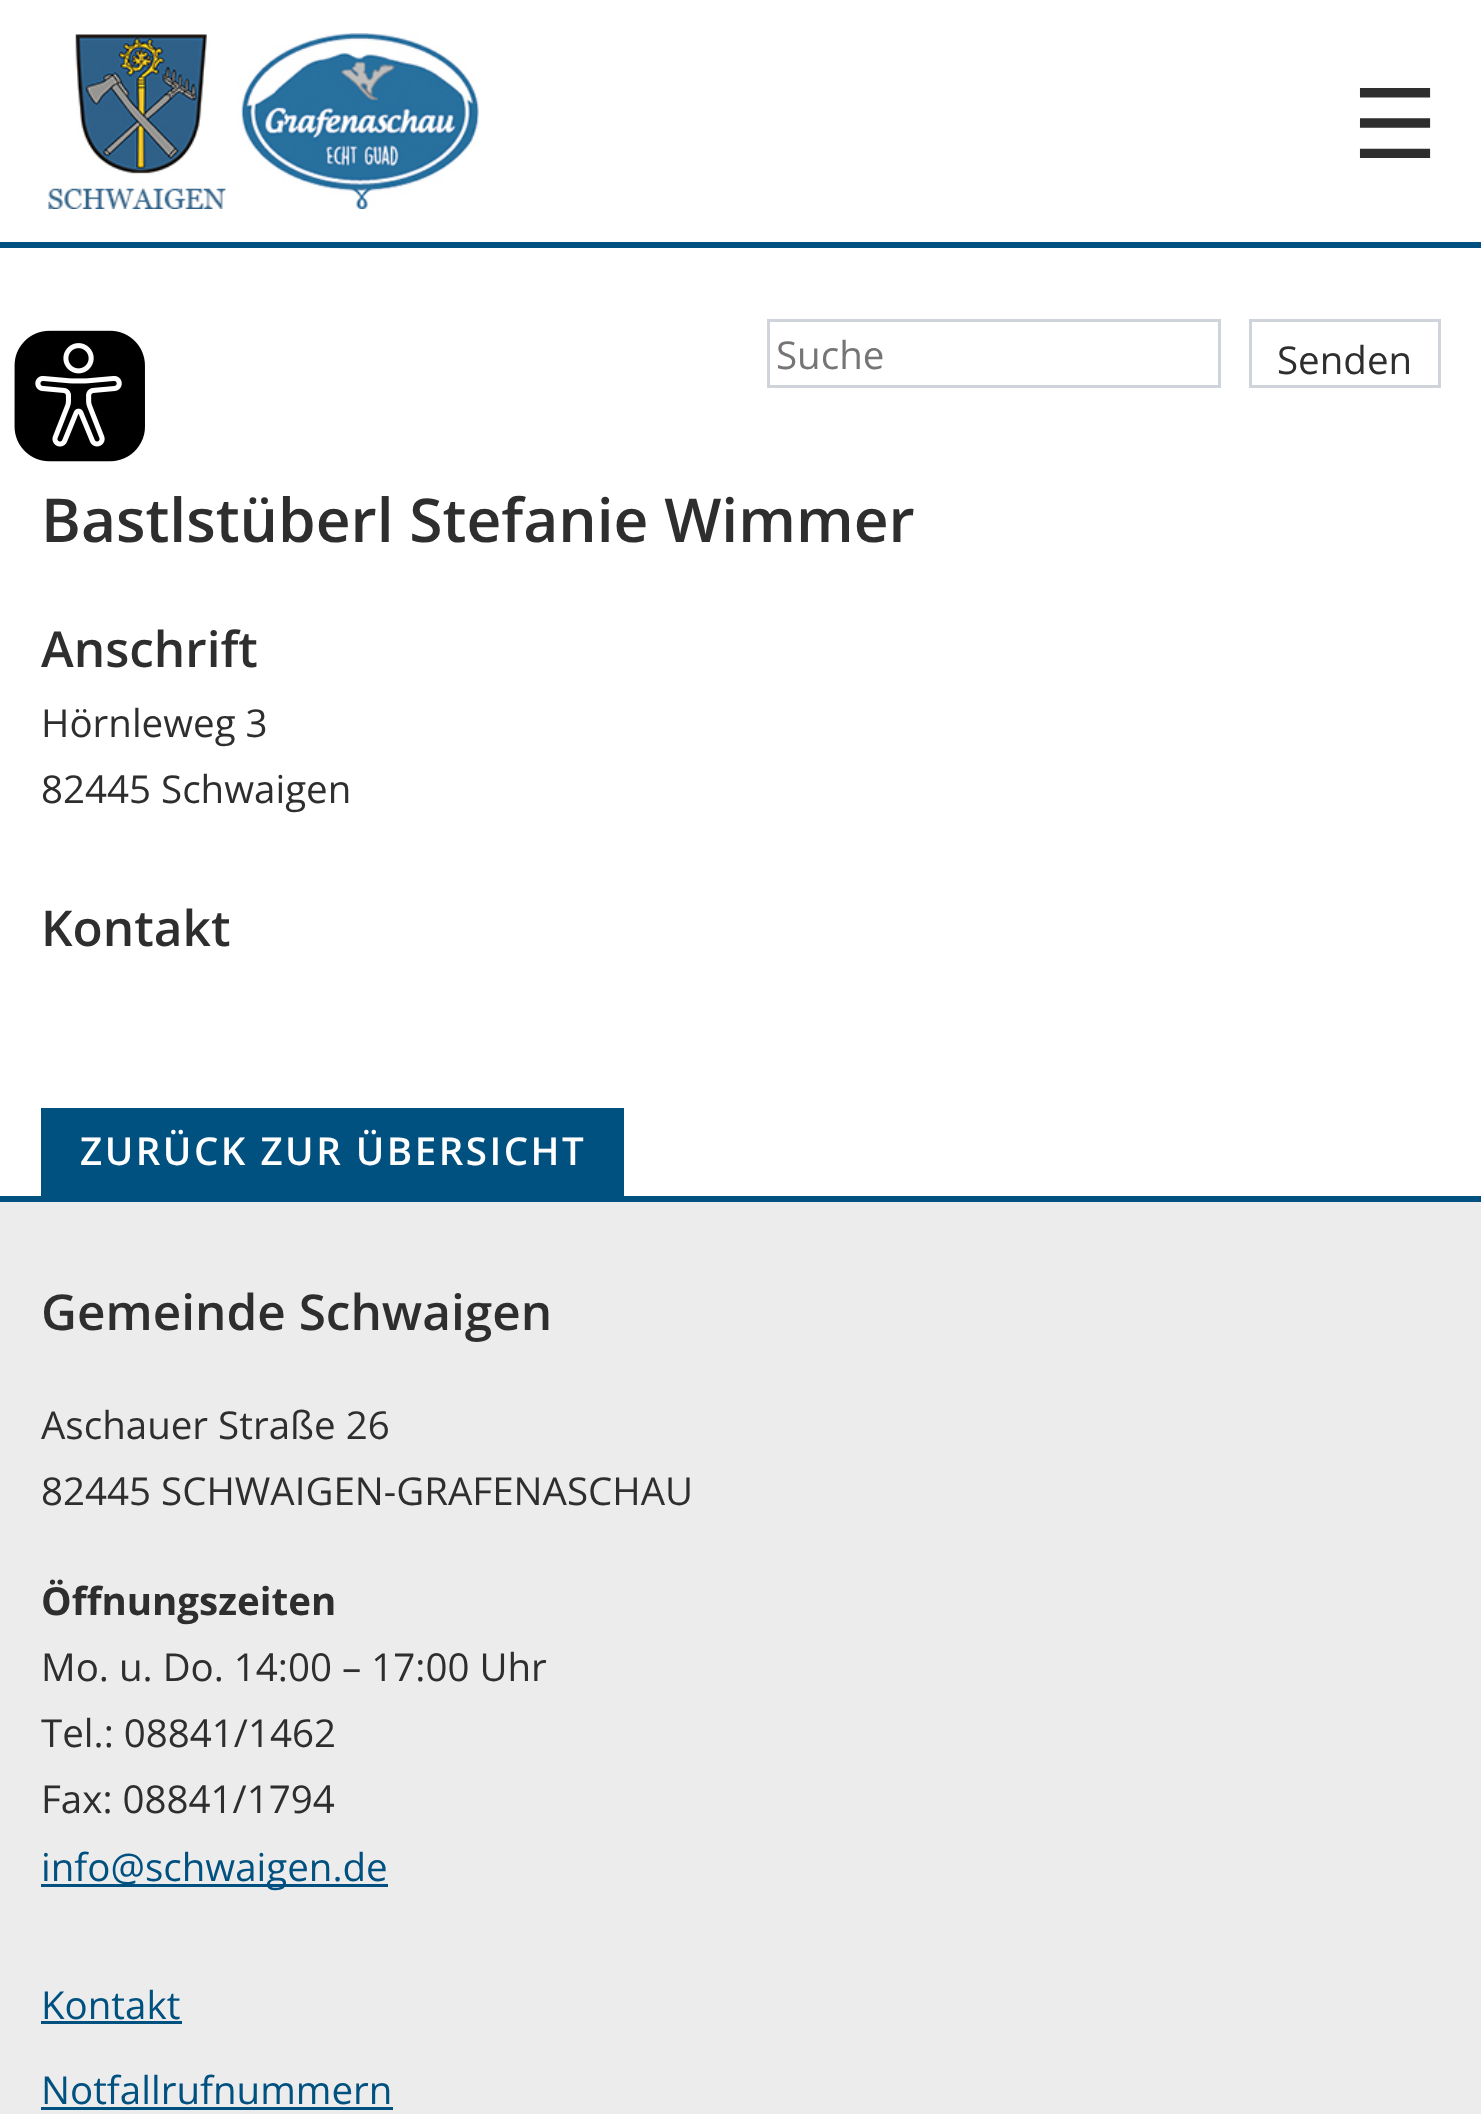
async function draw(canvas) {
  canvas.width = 1481;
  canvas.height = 2114;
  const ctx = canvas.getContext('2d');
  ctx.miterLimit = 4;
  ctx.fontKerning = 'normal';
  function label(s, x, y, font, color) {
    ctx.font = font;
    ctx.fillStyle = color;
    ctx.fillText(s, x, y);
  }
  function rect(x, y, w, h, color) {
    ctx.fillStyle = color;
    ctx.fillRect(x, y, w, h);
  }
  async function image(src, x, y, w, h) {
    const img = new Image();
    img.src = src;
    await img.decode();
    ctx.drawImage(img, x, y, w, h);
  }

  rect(0, 0, 1481, 2114, '#fff');
  rect(0, 242, 1481, 6, '#005080');
  await image('assets/img1.png', 48, 33, 431, 176);
  label('☰', 1352, 158, '96px DejaVu Sans', '#2e2e2e');
  ctx.strokeStyle = '#ced4da';
  ctx.lineWidth = 3;
  ctx.strokeRect(768.5, 320.5, 451, 66);
  label('Suche', 776, 369, '38.5px Open Sans', '#757575');
  ctx.strokeRect(1250.5, 320.5, 189, 66);
  label('Senden', 1277, 374, '38.5px Open Sans', '#2e2e2e');
  await image('assets/img2.png', 14, 330, 131, 132);
  label('Bastlstüberl Stefanie Wimmer', 41, 542, '600 60.5px Open Sans', '#2e2e2e');
  label('Anschrift', 41, 667, '600 49.5px Open Sans', '#2e2e2e');
  label('Hörnleweg 3', 41, 737, '38.5px Open Sans', '#2e2e2e');
  label('82445 Schwaigen', 41, 803, '38.5px Open Sans', '#2e2e2e');
  label('Kontakt', 41, 946, '600 49.5px Open Sans', '#2e2e2e');
  rect(41, 1108, 583, 88, '#005080');
  ctx.letterSpacing = '2.5px';
  label('ZURÜCK ZUR ÜBERSICHT', 80, 1165, '600 38.5px Open Sans', '#fff');
  rect(0, 1202, 1481, 912, '#ececec');
  rect(0, 1196, 1481, 6, '#005080');
  ctx.letterSpacing = '0px';
  label('Gemeinde Schwaigen', 41, 1330, '600 49.5px Open Sans', '#2e2e2e');
  label('Aschauer Straße 26', 41, 1439, '38.5px Open Sans', '#2e2e2e');
  label('82445 SCHWAIGEN-GRAFENASCHAU', 41, 1505, '38.5px Open Sans', '#2e2e2e');
  label('Öffnungszeiten', 41, 1615, 'bold 38.5px Open Sans', '#2e2e2e');
  label('Mo. u. Do. 14:00 – 17:00 Uhr', 41, 1681, '38.5px Open Sans', '#2e2e2e');
  label('Tel.: 08841/1462', 41, 1747, '38.5px Open Sans', '#2e2e2e');
  label('Fax: 08841/1794', 41, 1813, '38.5px Open Sans', '#2e2e2e');
  rect(41, 1884, 347, 3, '#005080');
  label('info@schwaigen.de', 41, 1881, '38.5px Open Sans', '#005080');
  label('Kontakt', 41, 2019, '38.5px Open Sans', '#005080');
  rect(41, 2021, 141, 3, '#005080');
  label('Notfallrufnummern', 41, 2104, '38.5px Open Sans', '#005080');
  rect(41, 2107, 352, 3, '#005080');
}

draw(document.querySelector('canvas'));
